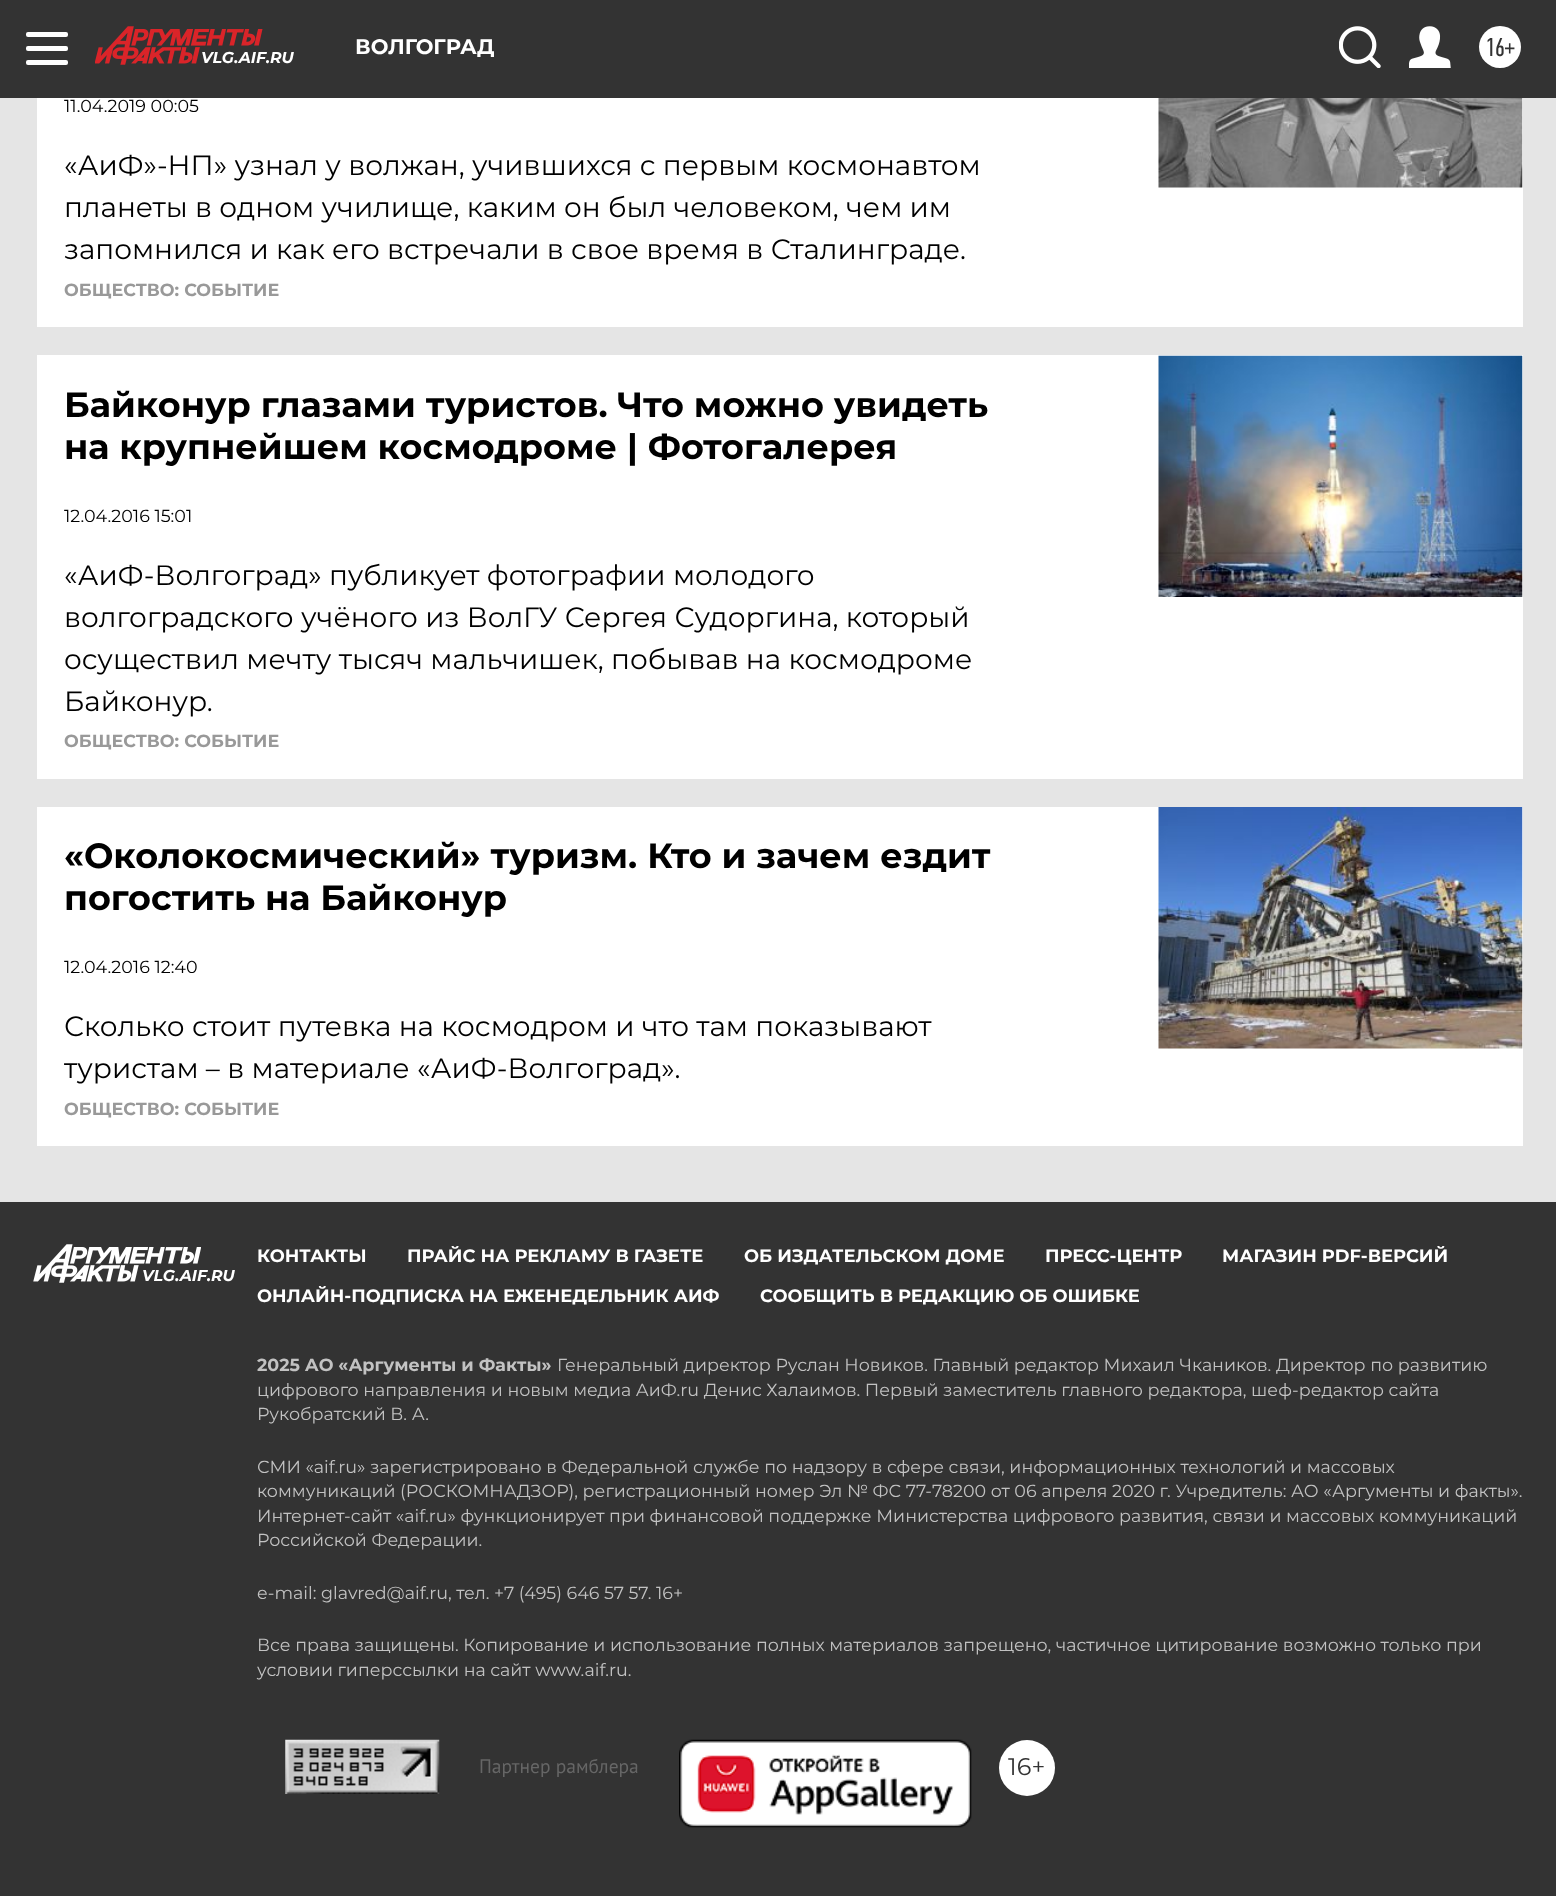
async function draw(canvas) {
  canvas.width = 1556;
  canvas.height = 1896;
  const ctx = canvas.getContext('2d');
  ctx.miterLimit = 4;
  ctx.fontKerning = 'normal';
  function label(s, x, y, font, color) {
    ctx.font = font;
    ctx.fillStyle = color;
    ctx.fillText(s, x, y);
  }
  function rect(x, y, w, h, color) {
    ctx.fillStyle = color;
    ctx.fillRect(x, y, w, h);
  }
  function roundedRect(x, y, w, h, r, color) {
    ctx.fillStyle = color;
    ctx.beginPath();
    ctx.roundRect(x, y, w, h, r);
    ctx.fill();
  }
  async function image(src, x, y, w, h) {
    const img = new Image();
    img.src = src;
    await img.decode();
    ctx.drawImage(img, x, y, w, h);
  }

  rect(0, 0, 1556, 1896, '#e5e5e5');
  rect(0, 0, 1556, 98, '#333');
  roundedRect(26, 32, 42, 5, 2, '#fff');
  roundedRect(26, 46, 42, 5, 2, '#fff');
  roundedRect(26, 60, 42, 5, 2, '#fff');
  await image('assets/img1.png', 95, 26, 168, 39);
  label('VLG.AIF.RU', 201, 63, 'italic bold 15.75px Montserrat', '#fff');
  label('ВОЛГОГРАД', 355, 54, 'bold 21px Montserrat', '#fff');
  await image('assets/img2.png', 1339, 26, 42, 42);
  await image('assets/img3.png', 1409, 26, 42, 42);
  ctx.beginPath();
  ctx.arc(1500, 47, 21, 0, 2 * Math.PI);
  ctx.fill();
  label('16+', 1485, 56, '26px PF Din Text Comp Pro', '#333');
  rect(37, 98, 1486, 229, '#fff');
  label('11.04.2019 00:05', 64, 112, '17.5px Montserrat', '#000');
  label('«АиФ»-НП» узнал у волжан, учившихся с первым космонавтом', 64, 175, '28px Montserrat', '#000');
  label('планеты в одном училище, каким он был человеком, чем им', 64, 217, '28px Montserrat', '#000');
  label('запомнился и как его встречали в свое время в Сталинграде.', 64, 259, '28px Montserrat', '#000');
  await image('assets/img4.png', 1158, 98, 365, 90);
  label('ОБЩЕСТВО: СОБЫТИЕ', 64, 296, 'bold 17.5px Montserrat', '#999');
  rect(37, 355, 1486, 424, '#fff');
  label('Байконур глазами туристов. Что можно увидеть', 64, 417, 'bold 35px Montserrat', '#000');
  label('на крупнейшем космодроме | Фотогалерея', 64, 459, 'bold 35px Montserrat', '#000');
  label('12.04.2016 15:01', 64, 522, '17.5px Montserrat', '#000');
  label('«АиФ-Волгоград» публикует фотографии молодого', 64, 585, '28px Montserrat', '#000');
  label('волгоградского учёного из ВолГУ Сергея Судоргина, который', 64, 627, '28px Montserrat', '#000');
  label('осуществил мечту тысяч мальчишек, побывав на космодроме', 64, 669, '28px Montserrat', '#000');
  label('Байконур.', 64, 711, '28px Montserrat', '#000');
  await image('assets/img5.png', 1158, 355, 365, 242);
  label('ОБЩЕСТВО: СОБЫТИЕ', 64, 747, 'bold 17.5px Montserrat', '#999');
  rect(37, 807, 1486, 339, '#fff');
  label('«Околокосмический» туризм. Кто и зачем ездит', 64, 868, 'bold 35px Montserrat', '#000');
  label('погостить на Байконур', 64, 910, 'bold 35px Montserrat', '#000');
  label('12.04.2016 12:40', 64, 973, '17.5px Montserrat', '#000');
  label('Сколько стоит путевка на космодром и что там показывают', 64, 1036, '28px Montserrat', '#000');
  label('туристам – в материале «АиФ-Волгоград».', 64, 1078, '28px Montserrat', '#000');
  await image('assets/img6.png', 1158, 807, 365, 242);
  label('ОБЩЕСТВО: СОБЫТИЕ', 64, 1115, 'bold 17.5px Montserrat', '#999');
  rect(0, 1202, 1556, 694, '#333');
  await image('assets/img7.png', 33, 1244, 168, 39);
  label('VLG.AIF.RU', 142, 1281, 'italic bold 15.75px Montserrat', '#fff');
  label('КОНТАКТЫ', 257, 1262, 'bold 17.85px Montserrat', '#fff');
  label('ПРАЙС НА РЕКЛАМУ В ГАЗЕТЕ', 407, 1262, 'bold 17.85px Montserrat', '#fff');
  label('ОБ ИЗДАТЕЛЬСКОМ ДОМЕ', 744, 1262, 'bold 17.85px Montserrat', '#fff');
  label('ПРЕСС-ЦЕНТР', 1045, 1262, 'bold 17.85px Montserrat', '#fff');
  label('МАГАЗИН PDF-ВЕРСИЙ', 1222, 1262, 'bold 17.85px Montserrat', '#fff');
  label('ОНЛАЙН-ПОДПИСКА НА ЕЖЕНЕДЕЛЬНИК АИФ', 257, 1302, 'bold 17.85px Montserrat', '#fff');
  label('СООБЩИТЬ В РЕДАКЦИЮ ОБ ОШИБКЕ', 760, 1302, 'bold 17.85px Montserrat', '#fff');
  label('2025 АО «Аргументы и Факты»', 257, 1371, 'bold 17.5px Montserrat', '#c2c2c2');
  label('Генеральный директор Руслан Новиков. Главный редактор Михаил Чкаников. Директор по развитию', 557, 1371, '17.5px Montserrat', '#c2c2c2');
  label('цифрового направления и новым медиа АиФ.ru Денис Халаимов. Первый заместитель главного редактора, шеф-редактор сайта', 257, 1396, '17.5px Montserrat', '#c2c2c2');
  label('Рукобратский В. А.', 257, 1420, '17.5px Montserrat', '#c2c2c2');
  label('СМИ «aif.ru» зарегистрировано в Федеральной службе по надзору в сфере связи, информационных технологий и массовых', 257, 1473, '17.5px Montserrat', '#c2c2c2');
  label('коммуникаций (РОСКОМНАДЗОР), регистрационный номер Эл № ФС 77-78200 от 06 апреля 2020 г. Учредитель: АО «Аргументы и факты».', 257, 1497, '17.5px Montserrat', '#c2c2c2');
  label('Интернет-сайт «aif.ru» функционирует при финансовой поддержке Министерства цифрового развития, связи и массовых коммуникаций', 257, 1522, '17.5px Montserrat', '#c2c2c2');
  label('Российской Федерации.', 257, 1546, '17.5px Montserrat', '#c2c2c2');
  label('e-mail: glavred@aif.ru, тел. +7 (495) 646 57 57. 16+', 257, 1599, '17.5px Montserrat', '#c2c2c2');
  label('Все права защищены. Копирование и использование полных материалов запрещено, частичное цитирование возможно только при', 257, 1651, '17.5px Montserrat', '#c2c2c2');
  label('условии гиперссылки на сайт www.aif.ru.', 257, 1676, '17.5px Montserrat', '#c2c2c2');
  await image('assets/img8.png', 285, 1739, 155, 55);
  label('Партнер рамблера', 479, 1773, '19.5px PT Sans', '#666');
  await image('assets/img9.png', 679, 1739, 293, 89);
  ctx.fillStyle = '#fff';
  ctx.beginPath();
  ctx.arc(1027, 1768, 28, 0, 2 * Math.PI);
  ctx.fill();
  label('16+', 1008, 1775, '24px Montserrat', '#333');
}

draw(document.querySelector('canvas'));
